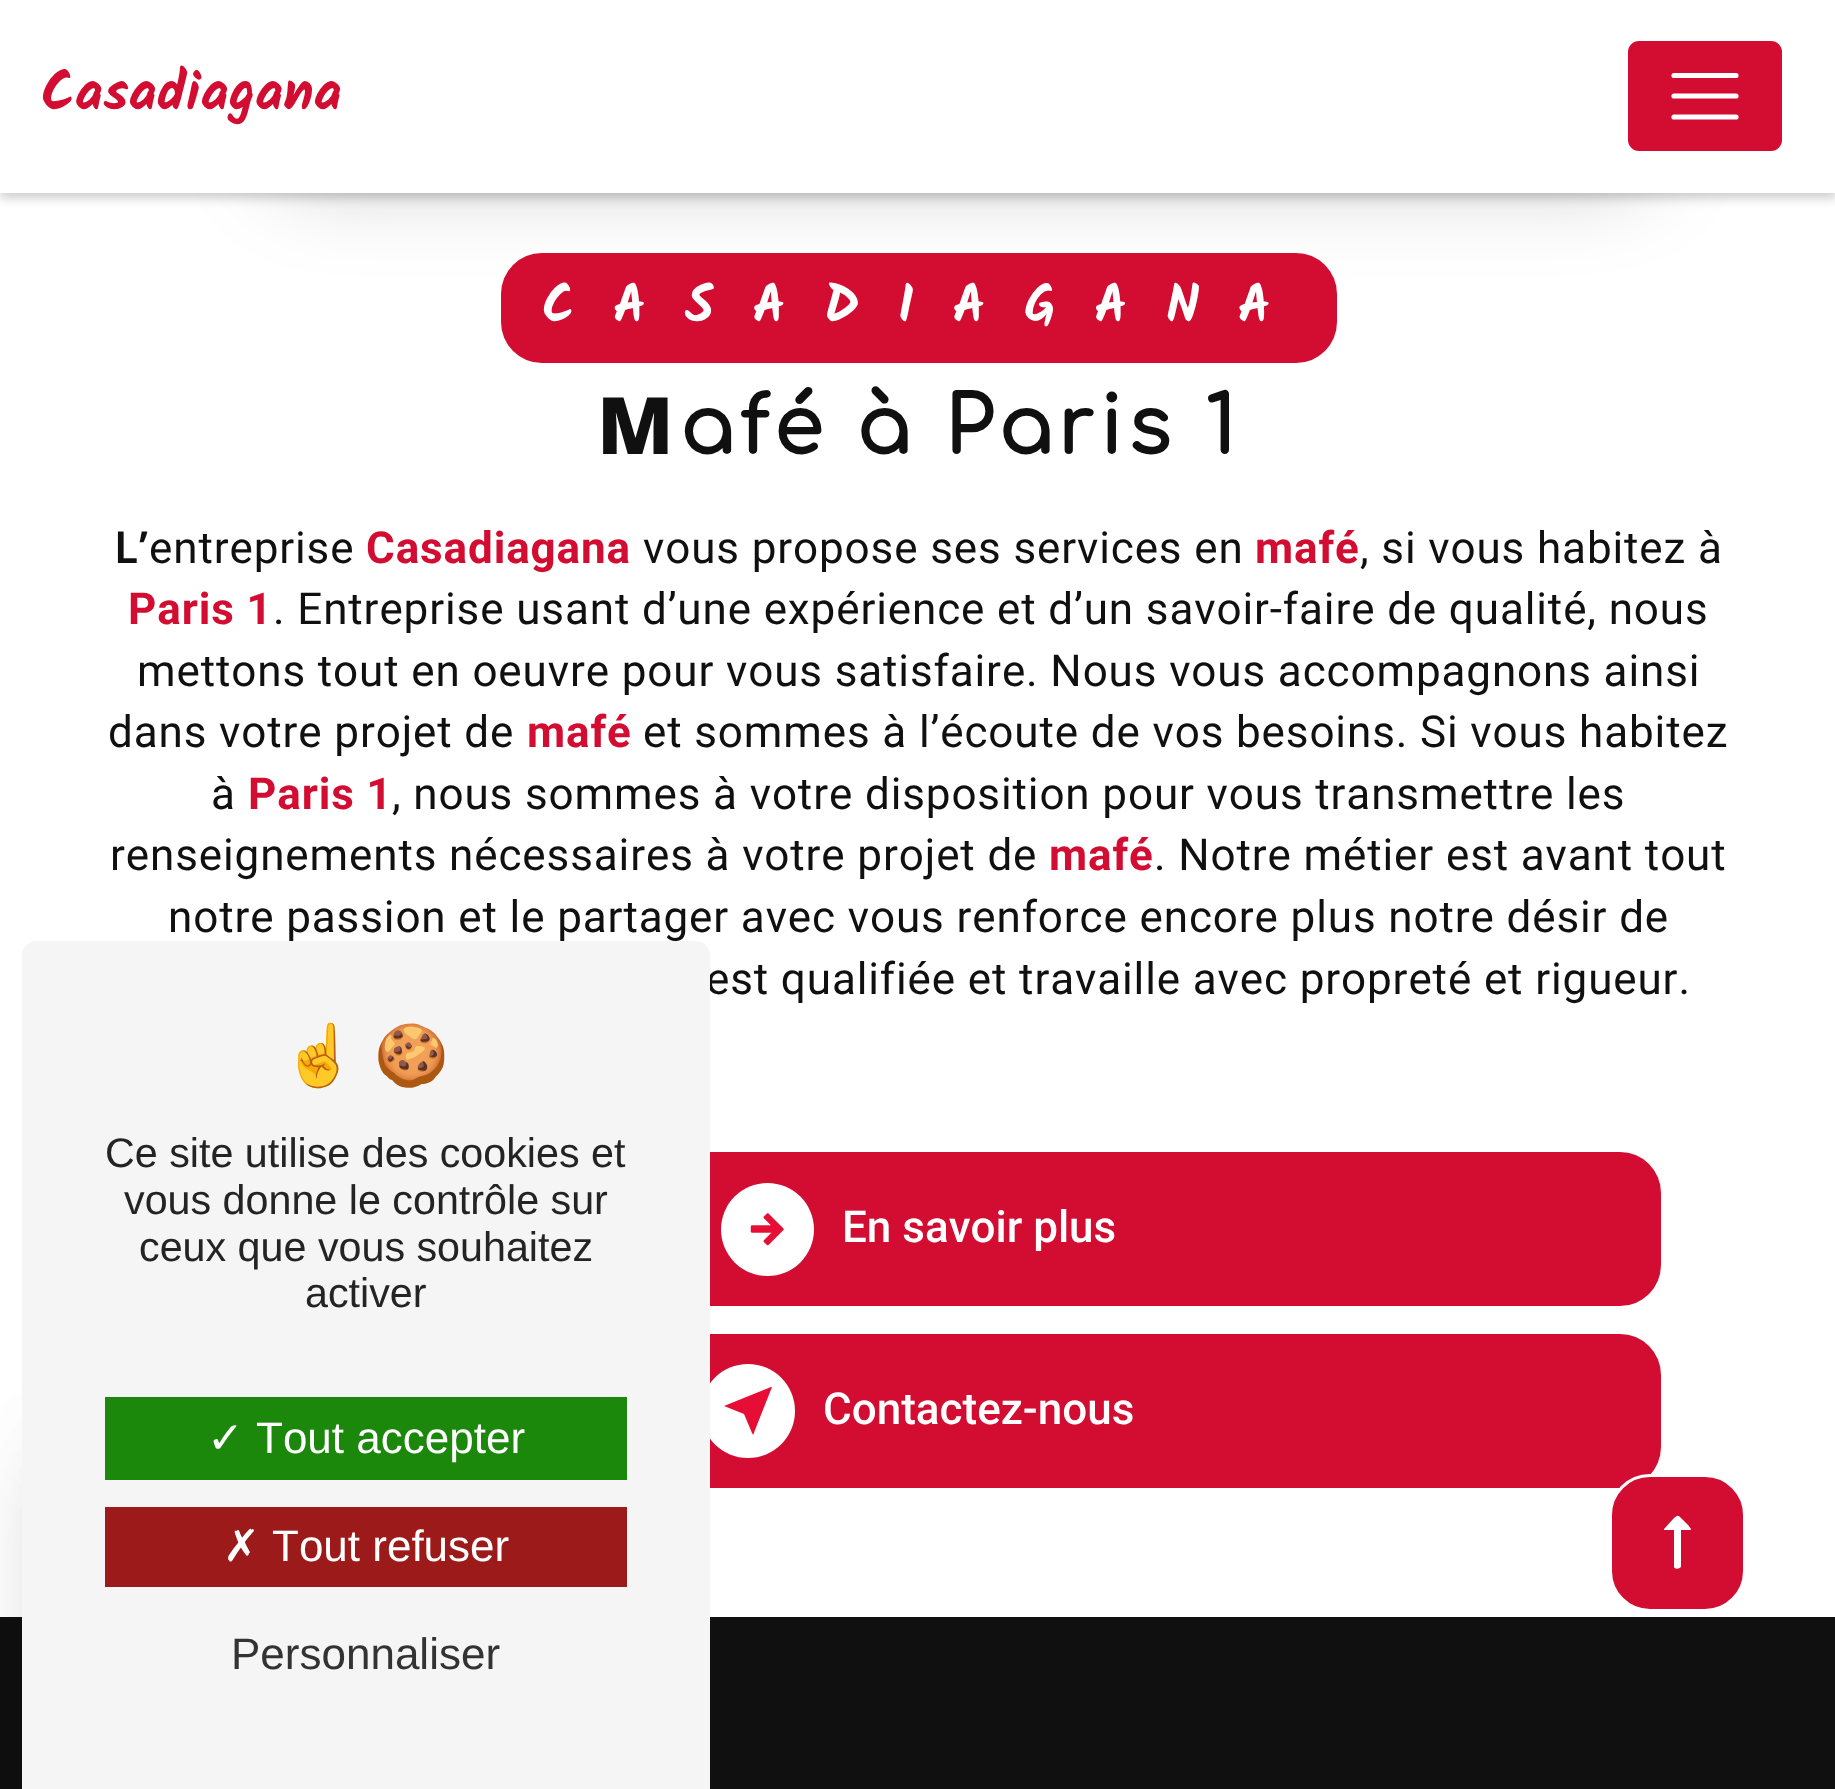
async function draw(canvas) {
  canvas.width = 1835;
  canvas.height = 1789;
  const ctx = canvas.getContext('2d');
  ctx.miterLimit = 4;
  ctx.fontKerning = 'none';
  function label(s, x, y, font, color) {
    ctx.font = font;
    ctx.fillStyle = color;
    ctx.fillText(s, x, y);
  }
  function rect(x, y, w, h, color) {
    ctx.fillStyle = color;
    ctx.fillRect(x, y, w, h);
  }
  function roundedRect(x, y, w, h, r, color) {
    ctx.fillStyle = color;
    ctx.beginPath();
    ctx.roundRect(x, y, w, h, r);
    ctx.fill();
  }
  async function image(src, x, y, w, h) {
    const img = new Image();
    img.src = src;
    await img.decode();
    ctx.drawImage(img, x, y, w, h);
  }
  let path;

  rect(0, 0, 1835, 1789, '#fff');
  ctx.fillStyle = '#00000033';
  ctx.filter = 'blur(5.5px)';
  ctx.beginPath();
  ctx.rect(0, 6, 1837, 192);
  ctx.fill();
  ctx.filter = 'none';
  ctx.filter = 'blur(44px)';
  ctx.beginPath();
  ctx.roundRect(267, -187, 1391, 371, 55);
  ctx.fill();
  ctx.filter = 'none';
  rect(0, 0, 1835, 193, '#fff');
  label('Casadiagana', 41, 110, 'bold 55px Kalam', '#d20d31');
  roundedRect(1628, 41, 154, 110, 11, '#d20d31');
  path = new Path2D('M1674 75.5H1736M1674 96H1736M1674 117H1736');
  ctx.strokeStyle = '#fff';
  ctx.lineWidth = 5.2;
  ctx.lineCap = 'round';
  ctx.stroke(path);
  roundedRect(501, 253, 836, 110, 41, '#d20d31');
  ctx.letterSpacing = '38.5px';
  label('CASADIAGANA', 542, 322, 'bold 52.75px Kalam', '#fff');
  ctx.letterSpacing = '5.5px';
  label('M', 597, 454, '900 79.25px Noto Sans', '#101010');
  label('afé à Paris 1', 680, 454, 'bold 79.25px Comfortaa', '#101010');
  ctx.letterSpacing = '0.88px';
  label('L’', 114, 563, '600 44px Noto Sans', '#101010');
  label('entreprise', 149, 563, '44px Roboto', '#101010');
  label('Casadiagana', 366, 563, 'bold 44px Roboto', '#d20d31');
  label('vous propose ses services en', 643, 563, '44px Roboto', '#101010');
  label('mafé', 1255, 563, 'bold 44px Roboto', '#d20d31');
  label(', si vous habitez à', 1360, 563, '44px Roboto', '#101010');
  label('Paris 1', 128, 624, 'bold 44px Roboto', '#d20d31');
  label('. Entreprise usant d’une expérience et d’un savoir-faire de qualité, nous', 273, 624, '44px Roboto', '#101010');
  label('mettons tout en oeuvre pour vous satisfaire. Nous vous accompagnons ainsi', 137, 686, '44px Roboto', '#101010');
  label('dans votre projet de', 108, 747, '44px Roboto', '#101010');
  label('mafé', 527, 747, 'bold 44px Roboto', '#d20d31');
  label('et sommes à l’écoute de vos besoins. Si vous habitez', 643, 747, '44px Roboto', '#101010');
  label('à', 211, 809, '44px Roboto', '#101010');
  label('Paris 1', 248, 809, 'bold 44px Roboto', '#d20d31');
  label(', nous sommes à votre disposition pour vous transmettre les', 392, 809, '44px Roboto', '#101010');
  label('renseignements nécessaires à votre projet de', 110, 870, '44px Roboto', '#101010');
  label('mafé', 1049, 870, 'bold 44px Roboto', '#d20d31');
  label('. Notre métier est avant tout', 1154, 870, '44px Roboto', '#101010');
  label('notre passion et le partager avec vous renforce encore plus notre désir de', 168, 932, '44px Roboto', '#101010');
  label('est qualifiée et travaille avec propreté et rigueur.', 706, 994, '44px Roboto', '#101010');
  roundedRect(176, 1152, 1485, 154, 41, '#d20d31');
  ctx.fillStyle = '#fff';
  ctx.beginPath();
  ctx.arc(767.5, 1229.5, 46.5, 0, 2 * Math.PI);
  ctx.fill();
  await image('assets/img1.png', 750, 1213, 34, 33);
  ctx.letterSpacing = '0px';
  label('En savoir plus', 842, 1242, '500 44px Roboto', '#fff');
  roundedRect(176, 1334, 1485, 154, 41, '#d20d31');
  ctx.fillStyle = '#fff';
  ctx.beginPath();
  ctx.arc(748, 1411, 47, 0, 2 * Math.PI);
  ctx.fill();
  ctx.fillStyle = '#e70e36';
  path = new Path2D('M772 1387L755 1430C753 1435 754 1436 752 1433L744 1414L724 1406L771 1387C772 1387 772 1387 772 1387Z');
  ctx.fill(path);
  label('Contactez-nous', 823, 1424, '500 44px Roboto', '#fff');
  rect(0, 1617, 1835, 172, '#101010');
  ctx.fillStyle = '#d20d31';
  ctx.beginPath();
  ctx.roundRect(1610.5, 1475.5, 134, 135, 39.5);
  ctx.fill();
  ctx.lineWidth = 3;
  ctx.stroke();
  ctx.fillStyle = '#fff';
  path = new Path2D('M1681 1566V1530H1690C1693 1530 1689 1527 1689 1526L1681 1518C1678 1515 1678 1515 1674 1518L1664 1529V1530H1674V1567C1675 1570 1681 1569 1681 1566Z');
  ctx.fill(path);
  ctx.fillStyle = '#00000026';
  ctx.filter = 'blur(41px)';
  ctx.beginPath();
  ctx.roundRect(55, 1449, 523, 314, 22);
  ctx.fill();
  ctx.filter = 'none';
  ctx.fillStyle = '#0000001a';
  ctx.filter = 'blur(55px)';
  ctx.beginPath();
  ctx.roundRect(55, 1463, 523, 314, 22);
  ctx.fill();
  ctx.filter = 'none';
  ctx.fillStyle = '#f5f5f5';
  path = new Path2D('M36 941H696C703.5 941 710 947.5 710 955V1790H22V955C22 947.5 28.5 941 36 941Z');
  ctx.fill(path);
  label('☝', 282, 1076, '60px Noto Color Emoji', '#242424');
  label('🍪', 374, 1076, '60px Noto Color Emoji', '#242424');
  label('Ce site utilise des cookies et', 105, 1167, '41.25px Liberation Sans', '#242424');
  label('vous donne le contrôle sur', 124, 1214, '41.25px Liberation Sans', '#242424');
  label('ceux que vous souhaitez', 139, 1261, '41.25px Liberation Sans', '#242424');
  label('activer', 305, 1307, '41.25px Liberation Sans', '#242424');
  rect(105, 1397, 522, 83, '#1b870b');
  label('✓', 207, 1453, '44px DejaVu Sans', '#fff');
  label('Tout accepter', 256, 1453, '44px Liberation Sans', '#fff');
  rect(105, 1507, 522, 80, '#9c1a1a');
  label('✗', 223, 1561, '44px DejaVu Sans', '#fff');
  label('Tout refuser', 272, 1561, '44px Liberation Sans', '#fff');
  label('Personnaliser', 231, 1669, '44px Liberation Sans', '#333');
}

draw(document.querySelector('canvas'));
